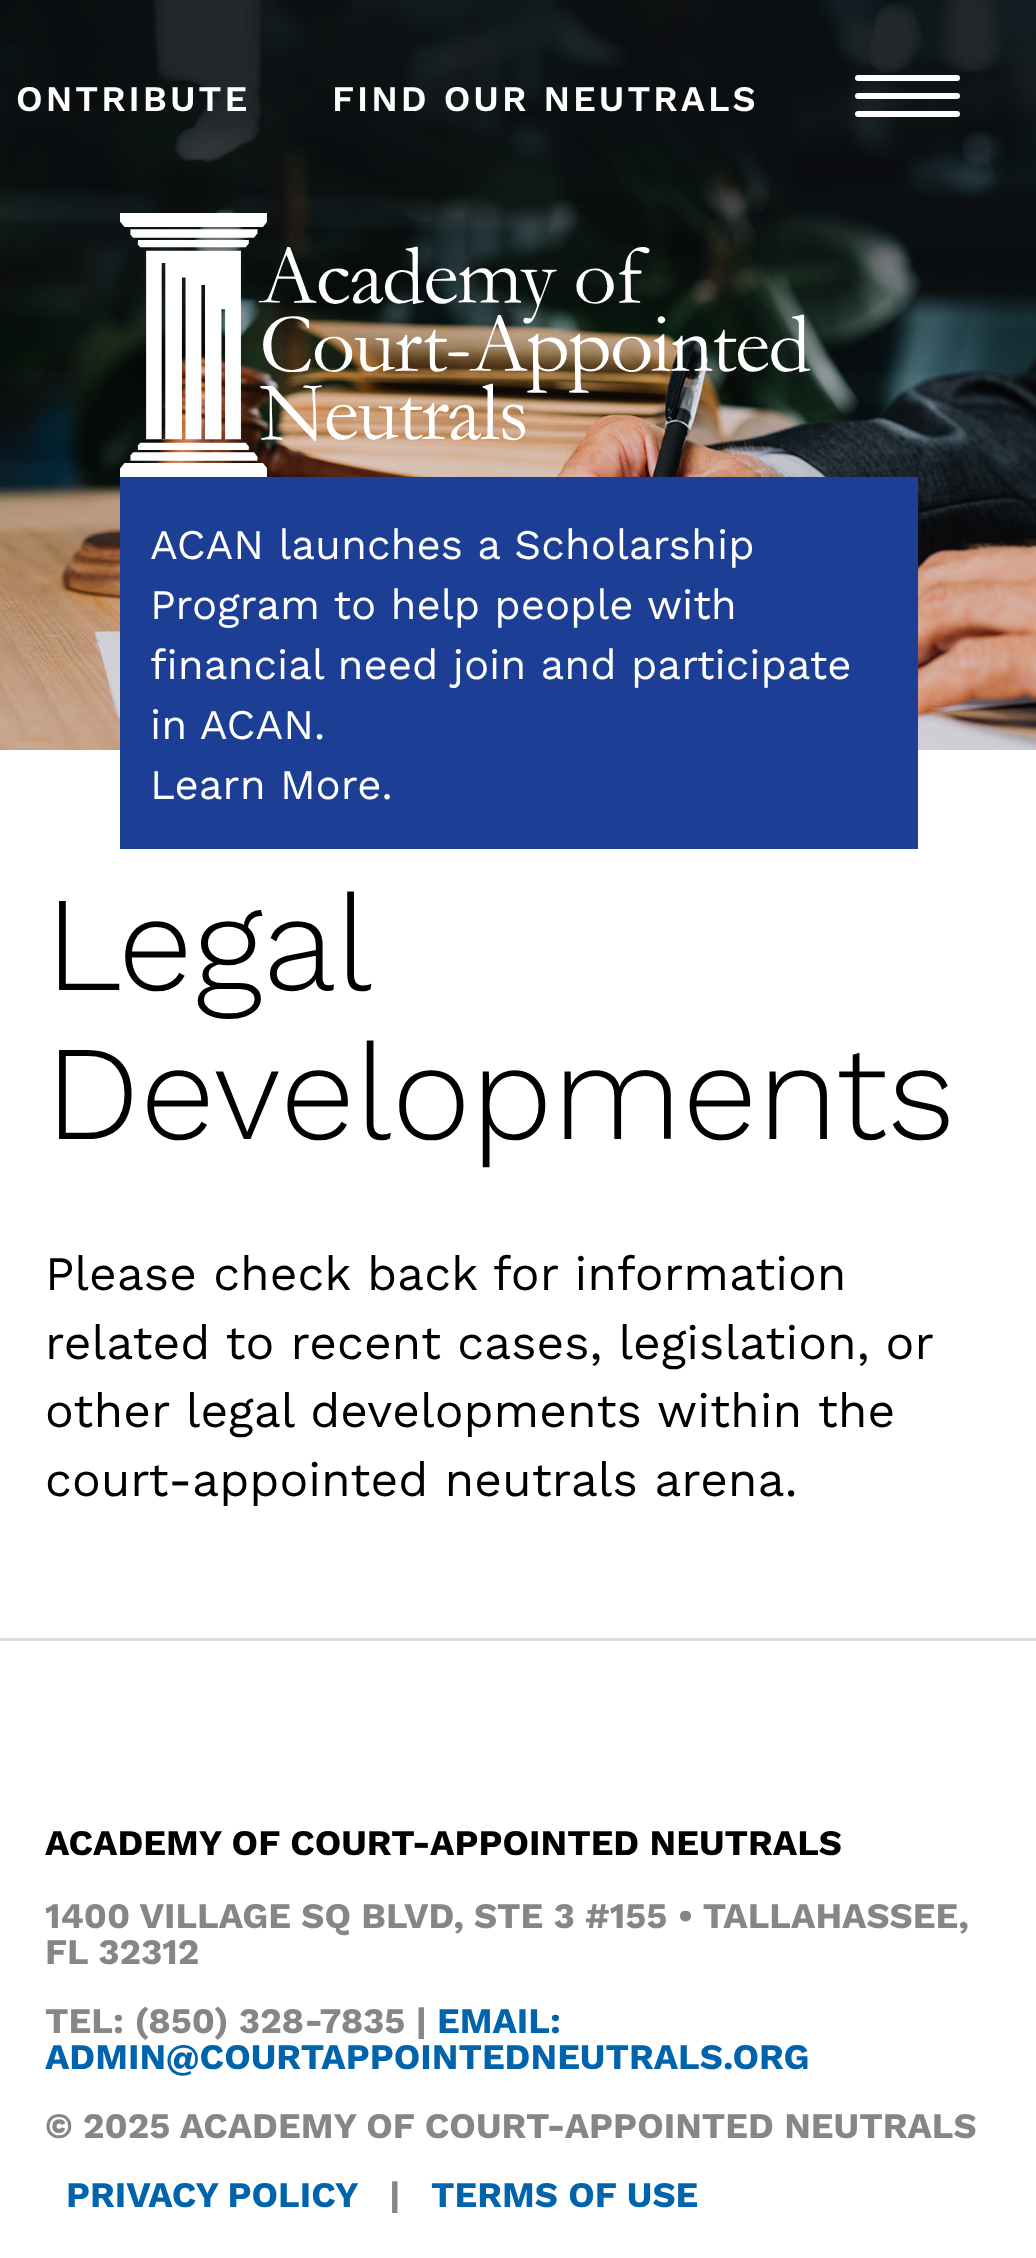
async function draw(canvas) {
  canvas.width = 1036;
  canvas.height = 2258;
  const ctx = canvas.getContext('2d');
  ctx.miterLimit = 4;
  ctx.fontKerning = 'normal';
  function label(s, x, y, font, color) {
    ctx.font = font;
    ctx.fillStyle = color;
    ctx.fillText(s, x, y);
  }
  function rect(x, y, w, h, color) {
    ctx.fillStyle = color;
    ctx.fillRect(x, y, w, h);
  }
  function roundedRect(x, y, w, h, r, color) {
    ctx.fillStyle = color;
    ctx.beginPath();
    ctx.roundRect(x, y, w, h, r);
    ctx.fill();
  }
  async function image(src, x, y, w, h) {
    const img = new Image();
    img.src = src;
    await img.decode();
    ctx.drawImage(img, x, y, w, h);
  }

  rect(0, 0, 1036, 2258, '#fff');
  await image('assets/img1.png', 0, 0, 1036, 750);
  ctx.letterSpacing = '3px';
  label('ONTRIBUTE', 16, 111, '600 36px Work Sans', '#fff');
  label('FIND OUR NEUTRALS', 332, 111, '600 36px Work Sans', '#fff');
  roundedRect(855, 75, 105, 6, 3, '#fff');
  roundedRect(855, 93, 105, 6, 3, '#fff');
  roundedRect(855, 111, 105, 6, 3, '#fff');
  await image('assets/img2.png', 120, 213, 690, 264);
  rect(120, 477, 798, 372, '#1c3f95');
  ctx.letterSpacing = '0px';
  label('ACAN launches a Scholarship', 150, 559, '42px Work Sans', '#fff');
  label('Program to help people with', 150, 619, '42px Work Sans', '#fff');
  label('financial need join and participate', 150, 679, '42px Work Sans', '#fff');
  label('in ACAN.', 150, 739, '42px Work Sans', '#fff');
  label('Learn More.', 150, 799, '42px Work Sans', '#fff');
  label('Legal', 45, 990, '300 135px Work Sans', '#000');
  label('Developments', 45, 1139, '300 135px Work Sans', '#000');
  label('Please check back for information', 45, 1290, '48px Work Sans', '#000');
  ctx.wordSpacing = '-0.25px';
  label('related to recent cases, legislation, or', 45, 1359, '48px Work Sans', '#000');
  ctx.wordSpacing = '0px';
  label('other legal developments within the', 45, 1427, '48px Work Sans', '#000');
  label('court-appointed neutrals arena.', 45, 1496, '48px Work Sans', '#000');
  rect(0, 1638, 1036, 3, '#dedede');
  label('ACADEMY OF COURT-APPOINTED NEUTRALS', 45, 1855, 'bold 36px Work Sans', '#000');
  label('1400 VILLAGE SQ BLVD, STE 3 #155 • TALLAHASSEE,', 45, 1928, 'bold 36px Work Sans', '#868686');
  label('FL 32312', 45, 1964, 'bold 36px Work Sans', '#868686');
  label('TEL: (850) 328-7835 |', 45, 2033, 'bold 36px Work Sans', '#868686');
  label('EMAIL:', 437, 2033, 'bold 36px Work Sans', '#0064ad');
  label('ADMIN@COURTAPPOINTEDNEUTRALS.ORG', 45, 2069, 'bold 36px Work Sans', '#0064ad');
  label('© 2025 ACADEMY OF COURT-APPOINTED NEUTRALS', 45, 2138, 'bold 36px Work Sans', '#868686');
  ctx.wordSpacing = '-1px';
  label('PRIVACY POLICY', 66, 2207, 'bold 36px Work Sans', '#0064ad');
  ctx.wordSpacing = '0px';
  label('|', 389, 2207, 'bold 36px Work Sans', '#868686');
  label('TERMS OF USE', 431, 2207, 'bold 36px Work Sans', '#0064ad');
}

draw(document.querySelector('canvas'));
